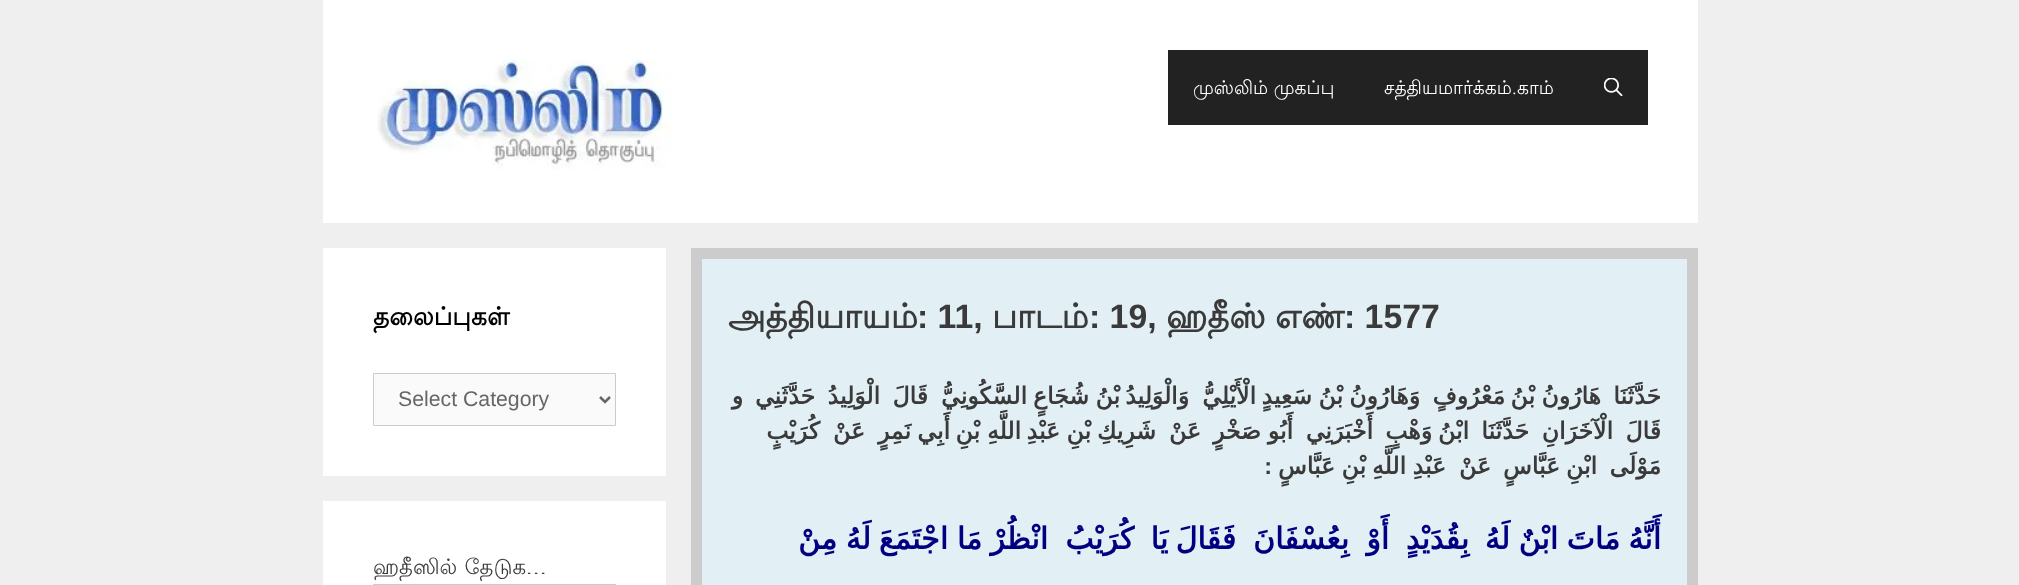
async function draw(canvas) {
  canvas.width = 2019;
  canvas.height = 585;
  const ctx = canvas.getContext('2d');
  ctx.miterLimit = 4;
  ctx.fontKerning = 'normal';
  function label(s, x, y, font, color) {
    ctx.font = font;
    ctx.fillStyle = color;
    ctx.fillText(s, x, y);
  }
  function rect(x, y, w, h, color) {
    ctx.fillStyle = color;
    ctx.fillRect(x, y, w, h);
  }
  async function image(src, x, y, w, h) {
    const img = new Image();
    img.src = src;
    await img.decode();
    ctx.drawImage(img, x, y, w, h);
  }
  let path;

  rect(0, 0, 2019, 585, '#efefef');
  rect(323, 0, 1375, 223, '#fff');
  rect(1168, 50, 480, 75, '#222');
  await image('assets/img1.png', 1604, 78, 19, 18);
  label('சத்தியமார்க்கம்.காம்', 1384, 94, '18.75px Lohit Tamil', '#fff');
  label('முஸ்லிம் முகப்பு', 1193, 94, '18.75px Lohit Tamil', '#fff');
  await image('assets/img2.png', 377, 59, 295, 111);
  ctx.fillStyle = '#e2eff4';
  ctx.beginPath();
  ctx.rect(696.5, 253.5, 996, 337);
  ctx.fill();
  ctx.strokeStyle = '#ccc';
  ctx.lineWidth = 11;
  ctx.stroke();
  label(': 1577', 1344, 328, 'bold 33.75px Liberation Sans', '#3a3a3a');
  label('எண்', 1275, 328, 'bold 33.75px Lohit Tamil', '#3a3a3a');
  label('ஹதீஸ்', 1166, 328, 'bold 33.75px Lohit Tamil', '#3a3a3a');
  label(': 19,', 1089, 328, 'bold 33.75px Liberation Sans', '#3a3a3a');
  label('பாடம்', 992, 328, 'bold 33.75px Lohit Tamil', '#3a3a3a');
  label(': 11,', 917, 328, 'bold 33.75px Liberation Sans', '#3a3a3a');
  label('அத்தியாயம்', 728, 328, 'bold 33.75px Lohit Tamil', '#3a3a3a');
  ctx.direction = 'rtl';
  label('حَدَّثَنَا', 1661, 404, 'bold 23.5px DejaVu Sans', '#3a3a3a');
  label('هَارُونُ', 1601, 404, 'bold 23.5px DejaVu Sans', '#3a3a3a');
  label('بْنُ', 1535, 404, 'bold 23.5px DejaVu Sans', '#3a3a3a');
  label('مَعْرُوفٍ', 1505, 404, 'bold 23.5px DejaVu Sans', '#3a3a3a');
  label('وَهَارُونُ', 1420, 404, 'bold 23.5px DejaVu Sans', '#3a3a3a');
  label('بْنُ', 1343, 404, 'bold 23.5px DejaVu Sans', '#3a3a3a');
  label('سَعِيدٍ', 1312, 404, 'bold 23.5px DejaVu Sans', '#3a3a3a');
  label('الْأَيْلِيُّ', 1256, 404, 'bold 23.5px DejaVu Sans', '#3a3a3a');
  label('وَالْوَلِيدُ', 1189, 404, 'bold 23.5px DejaVu Sans', '#3a3a3a');
  label('بْنُ', 1120, 404, 'bold 23.5px DejaVu Sans', '#3a3a3a');
  label('شُجَاعٍ', 1089, 404, 'bold 23.5px DejaVu Sans', '#3a3a3a');
  label('السَّكُونِيُّ', 1027, 404, 'bold 23.5px DejaVu Sans', '#3a3a3a');
  label('قَالَ', 928, 404, 'bold 23.5px DejaVu Sans', '#3a3a3a');
  label('الْوَلِيدُ', 880, 404, 'bold 23.5px DejaVu Sans', '#3a3a3a');
  label('حَدَّثَنِي', 815, 404, 'bold 23.5px DejaVu Sans', '#3a3a3a');
  label('و', 743, 404, 'bold 23.5px DejaVu Sans', '#3a3a3a');
  label('قَالَ', 1661, 439, 'bold 23.5px DejaVu Sans', '#3a3a3a');
  label('الْآخَرَانِ', 1613, 439, 'bold 23.5px DejaVu Sans', '#3a3a3a');
  label('حَدَّثَنَا', 1529, 439, 'bold 23.5px DejaVu Sans', '#3a3a3a');
  label('ابْنُ', 1469, 439, 'bold 23.5px DejaVu Sans', '#3a3a3a');
  label('وَهْبٍ', 1432, 439, 'bold 23.5px DejaVu Sans', '#3a3a3a');
  label('أَخْبَرَنِي', 1373, 439, 'bold 23.5px DejaVu Sans', '#3a3a3a');
  label('أَبُو', 1293, 439, 'bold 23.5px DejaVu Sans', '#3a3a3a');
  label('صَخْرٍ', 1261, 439, 'bold 23.5px DejaVu Sans', '#3a3a3a');
  label('عَنْ', 1201, 439, 'bold 23.5px DejaVu Sans', '#3a3a3a');
  label('شَرِيكِ', 1156, 439, 'bold 23.5px DejaVu Sans', '#3a3a3a');
  label('بْنِ', 1091, 439, 'bold 23.5px DejaVu Sans', '#3a3a3a');
  label('عَبْدِ', 1060, 439, 'bold 23.5px DejaVu Sans', '#3a3a3a');
  label('اللَّهِ', 1021, 439, 'bold 23.5px DejaVu Sans', '#3a3a3a');
  label('بْنِ', 980, 439, 'bold 23.5px DejaVu Sans', '#3a3a3a');
  label('أَبِي', 950, 439, 'bold 23.5px DejaVu Sans', '#3a3a3a');
  label('نَمِرٍ', 911, 439, 'bold 23.5px DejaVu Sans', '#3a3a3a');
  label('عَنْ', 865, 439, 'bold 23.5px DejaVu Sans', '#3a3a3a');
  label('كُرَيْبٍ', 820, 439, 'bold 23.5px DejaVu Sans', '#3a3a3a');
  label('مَوْلَى', 1661, 474, 'bold 23.5px DejaVu Sans', '#3a3a3a');
  label('ابْنِ', 1597, 474, 'bold 23.5px DejaVu Sans', '#3a3a3a');
  label('عَبَّاسٍ', 1560, 474, 'bold 23.5px DejaVu Sans', '#3a3a3a');
  label('عَنْ', 1491, 474, 'bold 23.5px DejaVu Sans', '#3a3a3a');
  label('عَبْدِ', 1446, 474, 'bold 23.5px DejaVu Sans', '#3a3a3a');
  label('اللَّهِ', 1406, 474, 'bold 23.5px DejaVu Sans', '#3a3a3a');
  label('بْنِ', 1366, 474, 'bold 23.5px DejaVu Sans', '#3a3a3a');
  label('عَبَّاسٍ', 1335, 474, 'bold 23.5px DejaVu Sans', '#3a3a3a');
  label(':', 1272, 474, 'bold 23.5px Liberation Sans', '#3a3a3a');
  label('أَنَّهُ', 1661, 549, 'bold 30px DejaVu Sans', '#000080');
  label('مَاتَ', 1620, 549, 'bold 30px DejaVu Sans', '#000080');
  label('ابْنٌ', 1558, 549, 'bold 30px DejaVu Sans', '#000080');
  label('لَهُ', 1510, 549, 'bold 30px DejaVu Sans', '#000080');
  label('بِقُدَيْدٍ', 1469, 549, 'bold 30px DejaVu Sans', '#000080');
  label('أَوْ', 1389, 549, 'bold 30px DejaVu Sans', '#000080');
  label('بِعُسْفَانَ', 1349, 549, 'bold 30px DejaVu Sans', '#000080');
  label('فَقَالَ', 1236, 549, 'bold 30px DejaVu Sans', '#000080');
  label('يَا', 1168, 549, 'bold 30px DejaVu Sans', '#000080');
  label('كُرَيْبُ', 1134, 549, 'bold 30px DejaVu Sans', '#000080');
  label('انْظُرْ', 1048, 549, 'bold 30px DejaVu Sans', '#000080');
  label('مَا', 982, 549, 'bold 30px DejaVu Sans', '#000080');
  label('اجْتَمَعَ', 948, 549, 'bold 30px DejaVu Sans', '#000080');
  label('لَهُ', 871, 549, 'bold 30px DejaVu Sans', '#000080');
  label('مِنْ', 837, 549, 'bold 30px DejaVu Sans', '#000080');
  rect(323, 248, 343, 228, '#fff');
  ctx.direction = 'ltr';
  label('தலைப்புகள்', 373, 325, 'bold 25px Lohit Tamil', '#000');
  ctx.fillStyle = '#fafafa';
  ctx.beginPath();
  ctx.rect(373.5, 373.5, 242, 52);
  ctx.fill();
  ctx.lineWidth = 1;
  ctx.stroke();
  path = new Path2D('M600 397L605 402L610 397');
  ctx.strokeStyle = '#666';
  ctx.lineWidth = 2.5;
  ctx.stroke(path);
  label('Select Category', 398, 406, '21.25px Liberation Sans', '#666');
  rect(323, 501, 343, 84, '#fff');
  ctx.wordSpacing = '1px';
  label('ஹதீஸில் தேடுக…', 373, 574, '21.25px Lohit Tamil', '#3a3a3a');
  ctx.strokeStyle = '#ccc';
  ctx.lineWidth = 1;
  ctx.strokeRect(373.5, 584.5, 242, 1);
}

draw(document.querySelector('canvas'));
